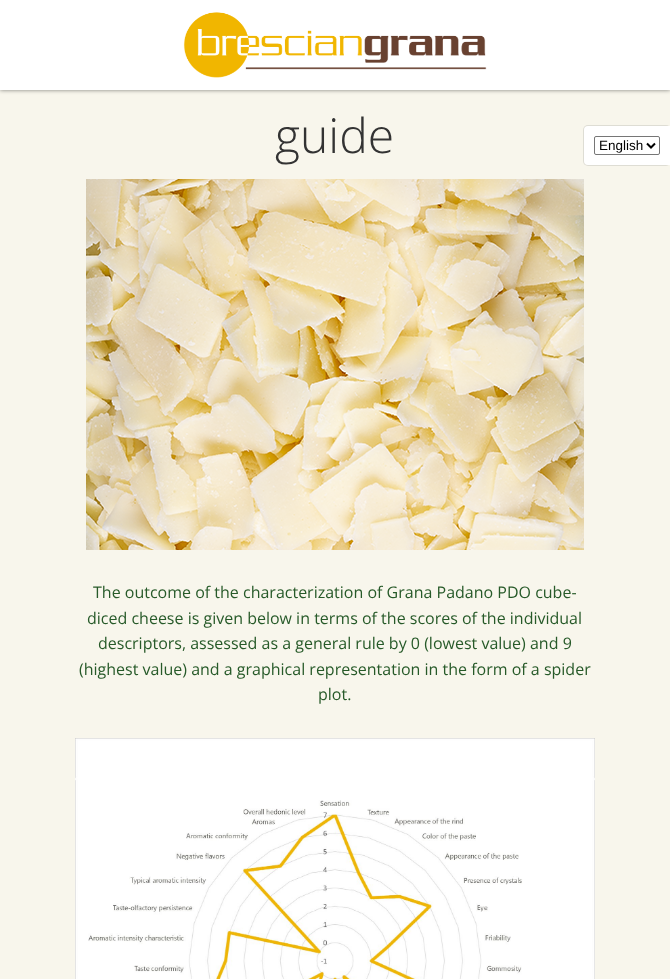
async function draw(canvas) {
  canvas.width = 670;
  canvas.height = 979;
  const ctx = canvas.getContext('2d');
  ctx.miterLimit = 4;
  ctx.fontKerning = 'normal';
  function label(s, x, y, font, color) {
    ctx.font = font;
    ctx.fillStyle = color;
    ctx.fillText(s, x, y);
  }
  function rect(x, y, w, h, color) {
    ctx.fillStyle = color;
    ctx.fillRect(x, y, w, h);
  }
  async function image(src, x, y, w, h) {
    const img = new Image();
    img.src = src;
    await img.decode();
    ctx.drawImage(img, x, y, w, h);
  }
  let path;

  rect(0, 0, 670, 979, '#f8f6ec');
  ctx.fillStyle = '#00000080';
  ctx.filter = 'blur(2px)';
  ctx.beginPath();
  ctx.rect(0, 0, 670, 90);
  ctx.fill();
  ctx.filter = 'none';
  rect(0, 0, 670, 90, '#fff');
  await image('assets/img1.png', 183, 12, 304, 66);
  label('guide', 275, 153, '300 48px Open Sans', '#333');
  await image('assets/img2.png', 86, 179, 498, 371);
  label('The outcome of the characterization of Grana Padano PDO cube-', 93, 598, '16px Open Sans', '#275a29');
  label('diced cheese is given below in terms of the scores of the individual', 87, 624, '16px Open Sans', '#275a29');
  label('descriptors, assessed as a general rule by 0 (lowest value) and 9', 98, 649, '16px Open Sans', '#275a29');
  label('(highest value) and a graphical representation in the form of a spider', 79, 675, '16px Open Sans', '#275a29');
  label('plot.', 318, 700, '16px Open Sans', '#275a29');
  await image('assets/img3.png', 75, 738, 520, 241);
  ctx.fillStyle = '#0000001a';
  ctx.filter = 'blur(0.5px)';
  ctx.beginPath();
  ctx.roundRect(583, 125, 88, 41, 5);
  ctx.fill();
  ctx.filter = 'none';
  ctx.fillStyle = '#fff';
  ctx.beginPath();
  ctx.roundRect(584, 126, 86, 39, [4, 0, 0, 4]);
  ctx.fill();
  ctx.beginPath();
  ctx.roundRect(594.5, 136.5, 65, 18, 1.5);
  ctx.strokeStyle = '#767676';
  ctx.stroke();
  path = new Path2D('M647 143.5L651 147.5L655 143.5');
  ctx.strokeStyle = '#000';
  ctx.lineWidth = 2;
  ctx.stroke(path);
  label('English', 599, 150, '13.5px Liberation Sans', '#000');
}

draw(document.querySelector('canvas'));
